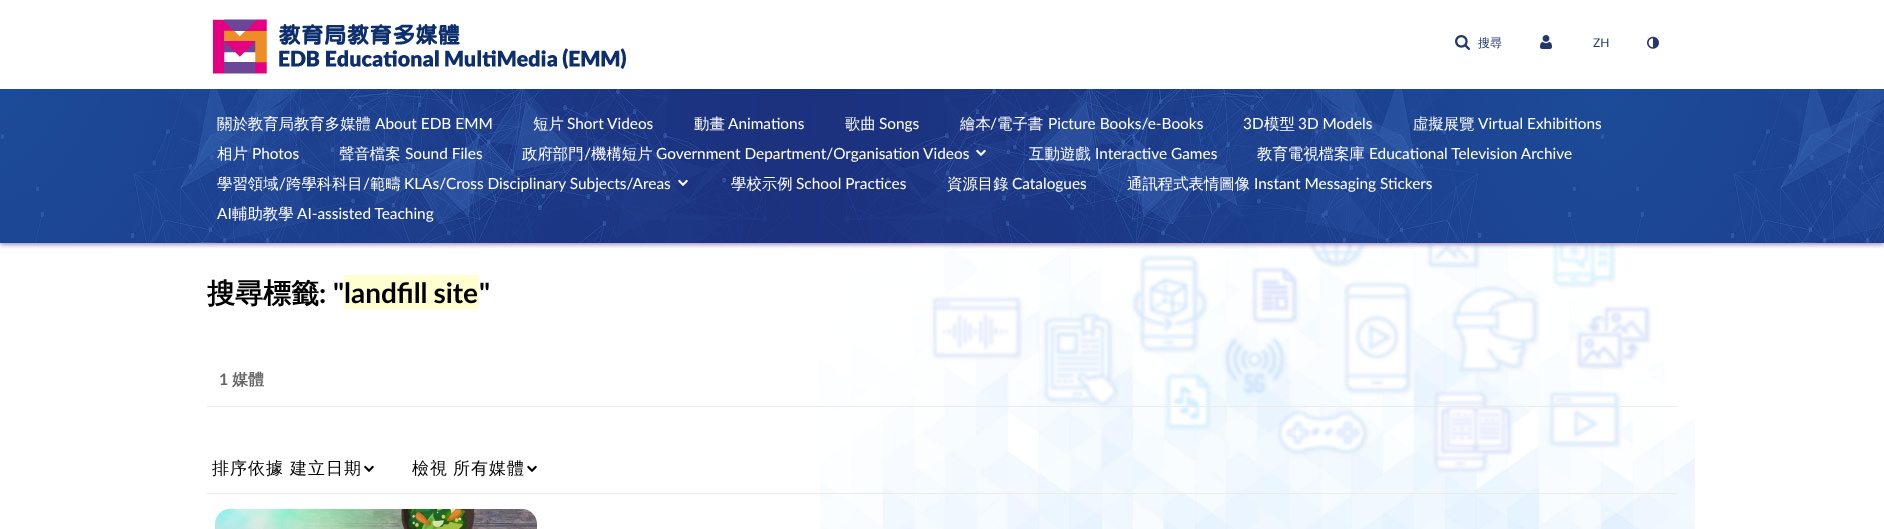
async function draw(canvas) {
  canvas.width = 1884;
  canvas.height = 529;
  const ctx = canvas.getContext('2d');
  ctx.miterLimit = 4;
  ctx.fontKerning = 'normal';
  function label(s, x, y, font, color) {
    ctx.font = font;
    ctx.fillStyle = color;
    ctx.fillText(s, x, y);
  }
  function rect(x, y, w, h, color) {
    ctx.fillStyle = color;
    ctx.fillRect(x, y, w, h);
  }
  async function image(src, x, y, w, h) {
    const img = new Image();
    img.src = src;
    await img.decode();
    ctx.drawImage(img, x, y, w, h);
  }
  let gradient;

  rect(0, 0, 1884, 529, '#fff');
  await image('assets/img1.png', 820, 243, 875, 286);
  ctx.save();
  ctx.beginPath();
  ctx.rect(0, 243, 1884, 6);
  ctx.clip();
  ctx.fillStyle = '#a895c3';
  ctx.filter = 'blur(2px)';
  ctx.beginPath();
  ctx.rect(0, 2, 1884, 243);
  ctx.fill();
  ctx.filter = 'none';
  ctx.restore();
  await image('assets/img2.png', 0, 88, 1884, 155);
  await image('assets/img3.png', 213, 19, 413, 55);
  await image('assets/img4.png', 1455, 35, 15, 15);
  label('搜尋', 1478, 47, '500 12px WenQuanYi Zen Hei', '#23376f');
  await image('assets/img5.png', 1540, 35, 12, 14);
  label('ZH', 1593, 47, '12px Lato', '#23376f');
  await image('assets/img6.png', 1647, 36, 12, 13);
  label('關於教育局教育多媒體', 217, 129, '500 15.4px WenQuanYi Zen Hei', '#fff');
  label('About EDB EMM', 375, 129, '15.4px Lato', '#fff');
  label('短片', 533, 129, '500 15.4px WenQuanYi Zen Hei', '#fff');
  label('Short Videos', 567, 129, '15.4px Lato', '#fff');
  label('動畫', 694, 129, '500 15.4px WenQuanYi Zen Hei', '#fff');
  label('Animations', 728, 129, '15.4px Lato', '#fff');
  label('歌曲', 845, 129, '500 15.4px WenQuanYi Zen Hei', '#fff');
  label('Songs', 879, 129, '15.4px Lato', '#fff');
  label('繪本', 960, 129, '500 15.4px WenQuanYi Zen Hei', '#fff');
  label('/', 990, 129, '15.4px Lato', '#fff');
  label('電子書', 997, 129, '500 15.4px WenQuanYi Zen Hei', '#fff');
  label('Picture Books/e-Books', 1048, 129, '15.4px Lato', '#fff');
  label('3D', 1243, 129, '15.4px Lato', '#fff');
  label('模型', 1264, 129, '500 15.4px WenQuanYi Zen Hei', '#fff');
  label('3D Models', 1298, 129, '15.4px Lato', '#fff');
  label('虛擬展覽', 1413, 129, '500 15.4px WenQuanYi Zen Hei', '#fff');
  label('Virtual Exhibitions', 1478, 129, '15.4px Lato', '#fff');
  label('相片', 217, 159, '500 15.4px WenQuanYi Zen Hei', '#fff');
  label('Photos', 252, 159, '15.4px Lato', '#fff');
  label('聲音檔案', 339, 159, '500 15.4px WenQuanYi Zen Hei', '#fff');
  label('Sound Files', 405, 159, '15.4px Lato', '#fff');
  label('政府部門', 522, 159, '500 15.4px WenQuanYi Zen Hei', '#fff');
  label('/', 584, 159, '15.4px Lato', '#fff');
  label('機構短片', 591, 159, '500 15.4px WenQuanYi Zen Hei', '#fff');
  label('Government Department/Organisation Videos', 656, 159, '15.4px Lato', '#fff');
  await image('assets/img7.png', 976, 149, 10, 7);
  label('互動遊戲', 1029, 159, '500 15.4px WenQuanYi Zen Hei', '#fff');
  label('Interactive Games', 1095, 159, '15.4px Lato', '#fff');
  label('教育電視檔案庫', 1257, 159, '500 15.4px WenQuanYi Zen Hei', '#fff');
  label('Educational Television Archive', 1369, 159, '15.4px Lato', '#fff');
  label('學習領域', 217, 189, '500 15.4px WenQuanYi Zen Hei', '#fff');
  label('/', 279, 189, '15.4px Lato', '#fff');
  label('跨學科科目', 286, 189, '500 15.4px WenQuanYi Zen Hei', '#fff');
  label('/', 363, 189, '15.4px Lato', '#fff');
  label('範疇', 370, 189, '500 15.4px WenQuanYi Zen Hei', '#fff');
  label('KLAs/Cross Disciplinary Subjects/Areas', 404, 189, '15.4px Lato', '#fff');
  await image('assets/img8.png', 678, 179, 10, 7);
  label('學校示例', 731, 189, '500 15.4px WenQuanYi Zen Hei', '#fff');
  label('School Practices', 796, 189, '15.4px Lato', '#fff');
  label('資源目錄', 947, 189, '500 15.4px WenQuanYi Zen Hei', '#fff');
  label('Catalogues', 1012, 189, '15.4px Lato', '#fff');
  label('通訊程式表情圖像', 1127, 189, '500 15.4px WenQuanYi Zen Hei', '#fff');
  label('Instant Messaging Stickers', 1254, 189, '15.4px Lato', '#fff');
  label('AI', 217, 219, '15.4px Lato', '#fff');
  label('輔助教學', 232, 219, '500 15.4px WenQuanYi Zen Hei', '#fff');
  label('AI-assisted Teaching', 297, 219, '15.4px Lato', '#fff');
  label('搜尋標籤', 207, 303, 'bold 28px WenQuanYi Zen Hei', '#000');
  label(': "', 319, 303, 'bold 28px Lato', '#000');
  rect(344, 275, 135, 34, '#ffffcf');
  ctx.wordSpacing = '-1px';
  label('landfill site', 344, 303, 'bold 28px Lato', '#000');
  ctx.wordSpacing = '0px';
  label('"', 479, 303, 'bold 28px Lato', '#000');
  rect(207, 406, 1470, 1, '#ebebeb');
  label('1', 219, 385, 'bold 16px Lato', '#666');
  label('媒體', 232, 385, 'bold 16px WenQuanYi Zen Hei', '#666');
  ctx.letterSpacing = '1px';
  label('排序依據', 212, 474, '500 17px WenQuanYi Zen Hei', '#000');
  label('建立日期', 290, 474, '500 17px WenQuanYi Zen Hei', '#000');
  await image('assets/img9.png', 364, 465, 10, 7);
  label('檢視', 412, 474, '500 17px WenQuanYi Zen Hei', '#000');
  label('所有媒體', 453, 474, '500 17px WenQuanYi Zen Hei', '#000');
  await image('assets/img9.png', 527, 465, 10, 7);
  rect(207, 493, 1470, 1, '#ebebeb');
  await image('assets/img10.png', 215, 509, 322, 20);
  gradient = ctx.createLinearGradient(376, 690, 376, 509);
  gradient.addColorStop(0, '#000000cc');
  gradient.addColorStop(0.3, '#00000066');
  gradient.addColorStop(0.53, '#00000033');
  gradient.addColorStop(0.71, '#00000026');
  gradient.addColorStop(1, '#0000000d');
  ctx.fillStyle = gradient;
  ctx.beginPath();
  ctx.roundRect(215, 509, 322, 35, 15);
  ctx.fill();
}

draw(document.querySelector('canvas'));
